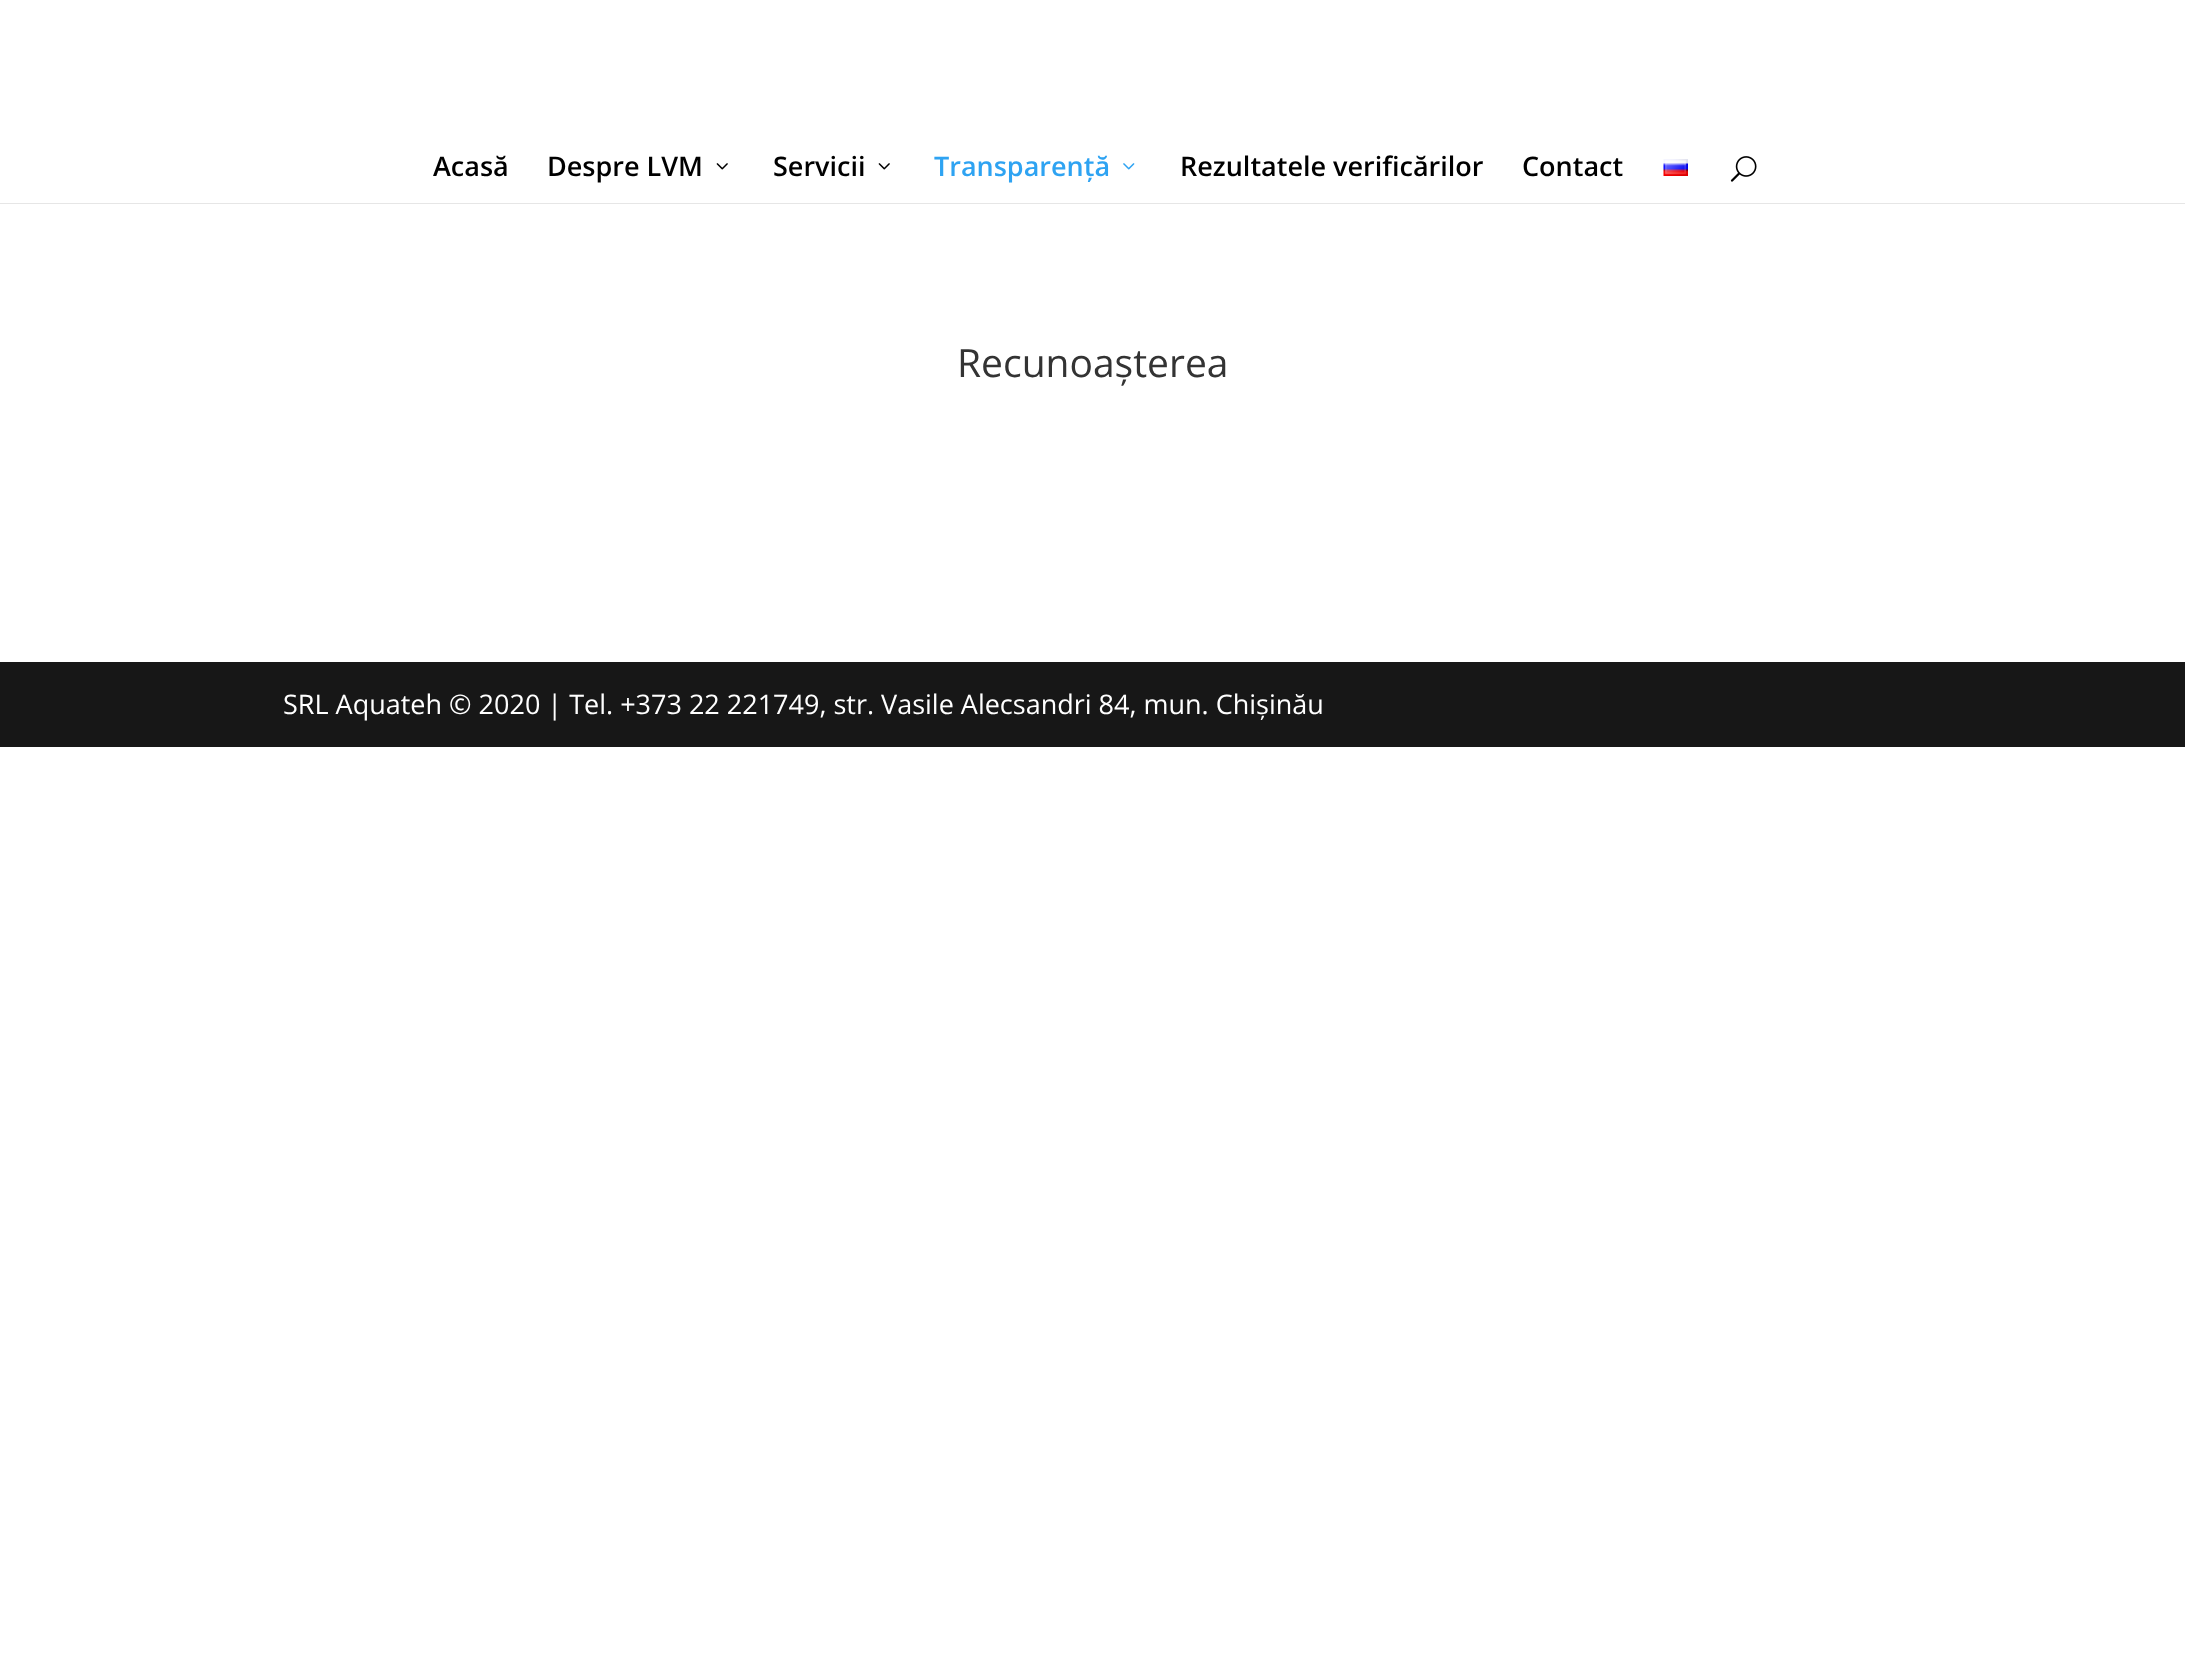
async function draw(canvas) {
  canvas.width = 2185;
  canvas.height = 1658;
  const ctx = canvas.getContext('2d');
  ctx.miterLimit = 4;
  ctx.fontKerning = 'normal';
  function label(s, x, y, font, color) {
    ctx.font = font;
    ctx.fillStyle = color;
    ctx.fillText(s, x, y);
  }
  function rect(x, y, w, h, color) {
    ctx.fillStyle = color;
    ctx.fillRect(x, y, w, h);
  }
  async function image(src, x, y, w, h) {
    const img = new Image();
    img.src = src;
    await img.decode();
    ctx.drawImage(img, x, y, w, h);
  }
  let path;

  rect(0, 0, 2185, 1658, '#fff');
  ctx.fillStyle = '#e6e6e6';
  path = new Path2D('M0 202V204H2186V2V202Z');
  ctx.fill(path);
  rect(0, 202, 2185, 1, '#fff');
  label('Acasă', 433, 176, '600 27px Open Sans', '#000');
  label('Despre LVM', 547, 176, '600 27px Open Sans', '#000');
  await image('assets/img1.png', 716, 163, 12, 7);
  label('Servicii', 773, 176, '600 27px Open Sans', '#000');
  await image('assets/img1.png', 878, 163, 12, 7);
  label('Transparență', 934, 176, '600 27px Open Sans', '#2ea3f2');
  await image('assets/img2.png', 1123, 163, 12, 7);
  label('Rezultatele verificărilor', 1180, 176, '600 27px Open Sans', '#000');
  label('Contact', 1522, 176, '600 27px Open Sans', '#000');
  await image('assets/img3.png', 1663, 159, 25, 17);
  await image('assets/img4.png', 1730, 156, 27, 26);
  label('Recunoașterea', 957, 377, '39px Open Sans', '#333');
  rect(0, 662, 2185, 85, '#171717');
  label('SRL Aquateh © 2020 | Tel. +373 22 221749, str. Vasile Alecsandri 84, mun. Chișinău', 283, 714, '27px Open Sans', '#fff');
}

draw(document.querySelector('canvas'));
